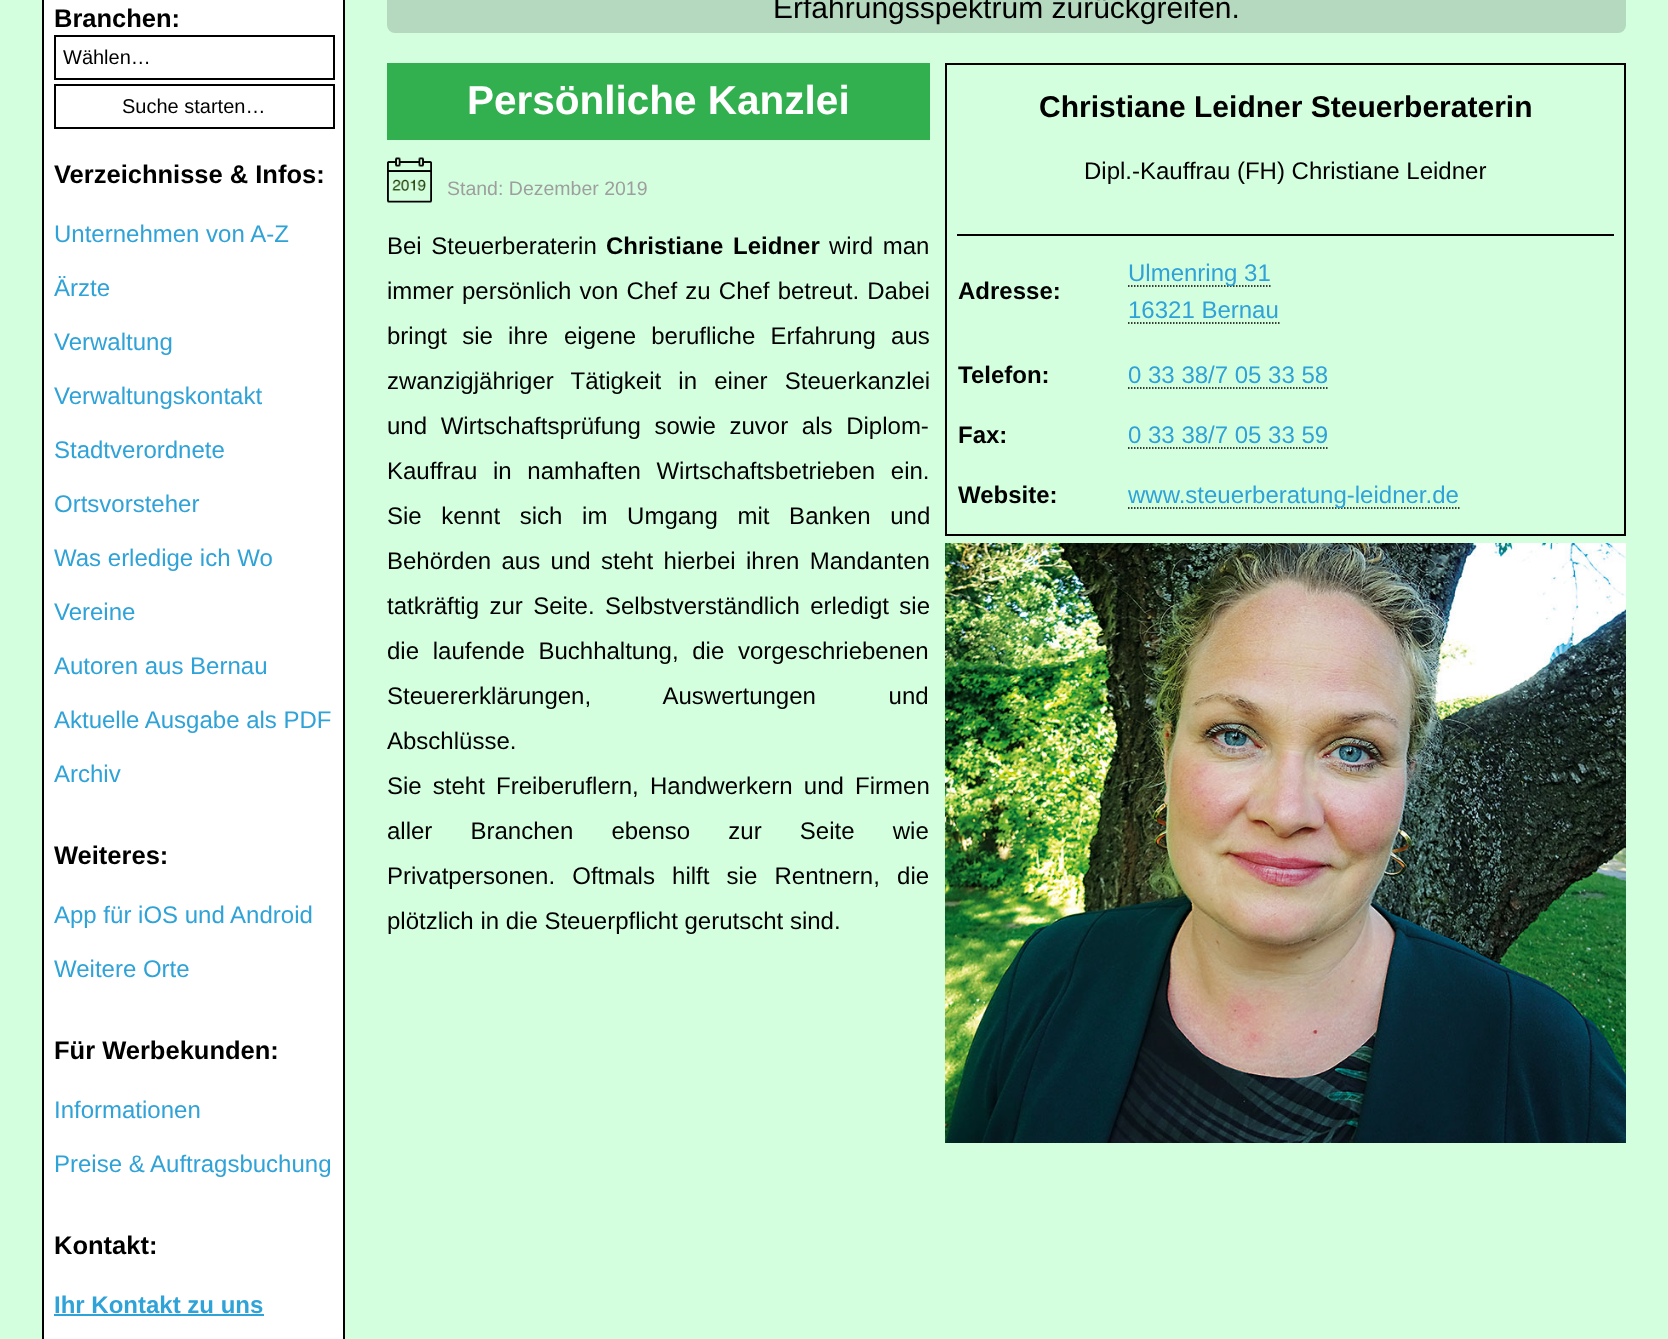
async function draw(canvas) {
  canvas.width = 1668;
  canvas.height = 1339;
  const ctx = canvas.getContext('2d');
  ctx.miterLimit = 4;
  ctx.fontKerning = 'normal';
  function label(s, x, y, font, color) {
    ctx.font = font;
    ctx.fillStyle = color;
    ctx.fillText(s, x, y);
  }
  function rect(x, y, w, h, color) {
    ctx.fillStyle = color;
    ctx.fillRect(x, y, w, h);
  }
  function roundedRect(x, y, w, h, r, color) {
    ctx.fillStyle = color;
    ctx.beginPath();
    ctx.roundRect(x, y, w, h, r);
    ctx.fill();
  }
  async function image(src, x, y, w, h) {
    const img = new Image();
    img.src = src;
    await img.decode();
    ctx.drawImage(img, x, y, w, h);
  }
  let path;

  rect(0, 0, 1668, 1339, '#d4ffdf');
  ctx.fillStyle = '#fff';
  ctx.beginPath();
  ctx.rect(43, -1, 301, 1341);
  ctx.fill();
  ctx.strokeStyle = '#000';
  ctx.lineWidth = 2;
  ctx.stroke();
  label('Branchen:', 54, 27, 'bold 25.5px Liberation Sans', '#000');
  ctx.strokeRect(55, 36, 279, 43);
  label('Wählen…', 63, 64, '20px Liberation Sans', '#000');
  ctx.strokeRect(55, 85, 279, 43);
  label('Suche starten…', 122, 113, '20px Liberation Sans', '#000');
  label('Verzeichnisse & Infos:', 54, 183, 'bold 25.5px Liberation Sans', '#000');
  label('Unternehmen von A-Z', 54, 242, '24px Liberation Sans', '#2fa2d7');
  label('Ärzte', 54, 296, '24px Liberation Sans', '#2fa2d7');
  label('Verwaltung', 54, 350, '24px Liberation Sans', '#2fa2d7');
  label('Verwaltungskontakt', 54, 404, '24px Liberation Sans', '#2fa2d7');
  label('Stadtverordnete', 54, 458, '24px Liberation Sans', '#2fa2d7');
  label('Ortsvorsteher', 54, 512, '24px Liberation Sans', '#2fa2d7');
  label('Was erledige ich Wo', 54, 566, '24px Liberation Sans', '#2fa2d7');
  label('Vereine', 54, 620, '24px Liberation Sans', '#2fa2d7');
  label('Autoren aus Bernau', 54, 674, '24px Liberation Sans', '#2fa2d7');
  label('Aktuelle Ausgabe als PDF', 54, 728, '24px Liberation Sans', '#2fa2d7');
  label('Archiv', 54, 782, '24px Liberation Sans', '#2fa2d7');
  label('Weiteres:', 54, 864, 'bold 25.5px Liberation Sans', '#000');
  label('App für iOS und Android', 54, 923, '24px Liberation Sans', '#2fa2d7');
  label('Weitere Orte', 54, 977, '24px Liberation Sans', '#2fa2d7');
  label('Für Werbekunden:', 54, 1059, 'bold 25.5px Liberation Sans', '#000');
  label('Informationen', 54, 1118, '24px Liberation Sans', '#2fa2d7');
  label('Preise & Auftragsbuchung', 54, 1172, '24px Liberation Sans', '#2fa2d7');
  label('Kontakt:', 54, 1254, 'bold 25.5px Liberation Sans', '#000');
  label('Ihr Kontakt zu uns', 54, 1313, 'bold 24px Liberation Sans', '#2fa2d7');
  rect(54, 1314, 210, 2, '#2fa2d7');
  roundedRect(387, -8, 1239, 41, 8, '#b4d9be');
  label('Erfahrungsspektrum zurückgreifen.', 773, 18, '30px Liberation Sans', '#000');
  rect(387, 63, 543, 77, '#32af4f');
  label('Persönliche Kanzlei', 467, 114, 'bold 40.5px Liberation Sans', '#fff');
  ctx.strokeRect(946, 64, 679, 471);
  label('Christiane Leidner Steuerberaterin', 1039, 117, 'bold 30px Liberation Sans', '#000');
  label('Dipl.-Kauffrau (FH) Christiane Leidner', 1084, 179, '24px Liberation Sans', '#000');
  rect(957, 234, 657, 2, '#000');
  label('Adresse:', 958, 299, 'bold 24px Liberation Sans', '#000');
  path = new Path2D('M1128 286H1270.5');
  ctx.lineWidth = 1.5;
  ctx.setLineDash([1.5, 1.5]);
  ctx.stroke(path);
  label('Ulmenring 31', 1128, 281, '24px Liberation Sans', '#2fa2d7');
  label('16321 Bernau', 1128, 318, '24px Liberation Sans', '#2fa2d7');
  path = new Path2D('M1128 323H1279.5');
  ctx.stroke(path);
  label('Telefon:', 958, 383, 'bold 24px Liberation Sans', '#000');
  label('0 33 38/7 05 33 58', 1128, 383, '24px Liberation Sans', '#2fa2d7');
  path = new Path2D('M1128 388H1329');
  ctx.stroke(path);
  label('Fax:', 958, 443, 'bold 24px Liberation Sans', '#000');
  label('0 33 38/7 05 33 59', 1128, 443, '24px Liberation Sans', '#2fa2d7');
  path = new Path2D('M1128 448H1329');
  ctx.stroke(path);
  label('Website:', 958, 503, 'bold 24px Liberation Sans', '#000');
  path = new Path2D('M1128 508H1459.5');
  ctx.stroke(path);
  label('www.steuerberatung-leidner.de', 1128, 503, '24px Liberation Sans', '#2fa2d7');
  await image('assets/img1.png', 945, 543, 681, 600);
  await image('assets/img2.png', 387, 157, 45, 46);
  label('Stand: Dezember 2019', 447, 195, '19.5px Liberation Sans', '#9e9e9e');
  ctx.wordSpacing = '3px';
  label('Bei Steuerberaterin', 387, 254, '24px Liberation Sans', '#000');
  label('Christiane Leidner', 606, 254, 'bold 24px Liberation Sans', '#000');
  label('wird man', 829, 254, '24px Liberation Sans', '#000');
  ctx.wordSpacing = '0px';
  label('immer', 387, 299, '24px Liberation Sans', '#000');
  ctx.wordSpacing = '1.5px';
  label('persönlich von Chef zu Chef betreut. Dabei', 462, 299, '24px Liberation Sans', '#000');
  ctx.wordSpacing = '8.5px';
  label('bringt sie ihre', 387, 344, '24px Liberation Sans', '#000');
  label('eigene berufliche Erfahrung aus', 564, 344, '24px Liberation Sans', '#000');
  ctx.wordSpacing = '10.5px';
  label('zwanzigjähriger Tätigkeit in einer Steuerkanzlei', 387, 389, '24px Liberation Sans', '#000');
  ctx.wordSpacing = '7px';
  label('und Wirtschaftsprüfung sowie zuvor als Diplom-', 387, 434, '24px Liberation Sans', '#000');
  ctx.wordSpacing = '9px';
  label('Kauffrau in namhaften Wirtschaftsbetrieben ein.', 387, 479, '24px Liberation Sans', '#000');
  ctx.wordSpacing = '13px';
  label('Sie kennt sich im Umgang mit Banken und', 387, 524, '24px Liberation Sans', '#000');
  ctx.wordSpacing = '3.75px';
  label('Behörden aus und steht hierbei ihren Mandanten', 387, 569, '24px Liberation Sans', '#000');
  label('tatkräftig zur Seite. Selbstverständlich erledigt sie', 387, 614, '24px Liberation Sans', '#000');
  ctx.wordSpacing = '7px';
  label('die laufende Buchhaltung, die vorgeschriebenen', 387, 659, '24px Liberation Sans', '#000');
  ctx.wordSpacing = '66px';
  label('Steuererklärungen, Auswertungen und', 387, 704, '24px Liberation Sans', '#000');
  ctx.wordSpacing = '0px';
  label('Abschlüsse.', 387, 749, '24px Liberation Sans', '#000');
  ctx.wordSpacing = '4.5px';
  label('Sie steht Freiberuflern, Handwerkern und Firmen', 387, 794, '24px Liberation Sans', '#000');
  ctx.wordSpacing = '31.5px';
  label('aller Branchen ebenso zur Seite wie', 387, 839, '24px Liberation Sans', '#000');
  ctx.wordSpacing = '10.5px';
  label('Privatpersonen. Oftmals hilft sie Rentnern, die', 387, 884, '24px Liberation Sans', '#000');
  ctx.wordSpacing = '0px';
  label('plötzlich in die Steuerpflicht gerutscht sind.', 387, 929, '24px Liberation Sans', '#000');
}

draw(document.querySelector('canvas'));
